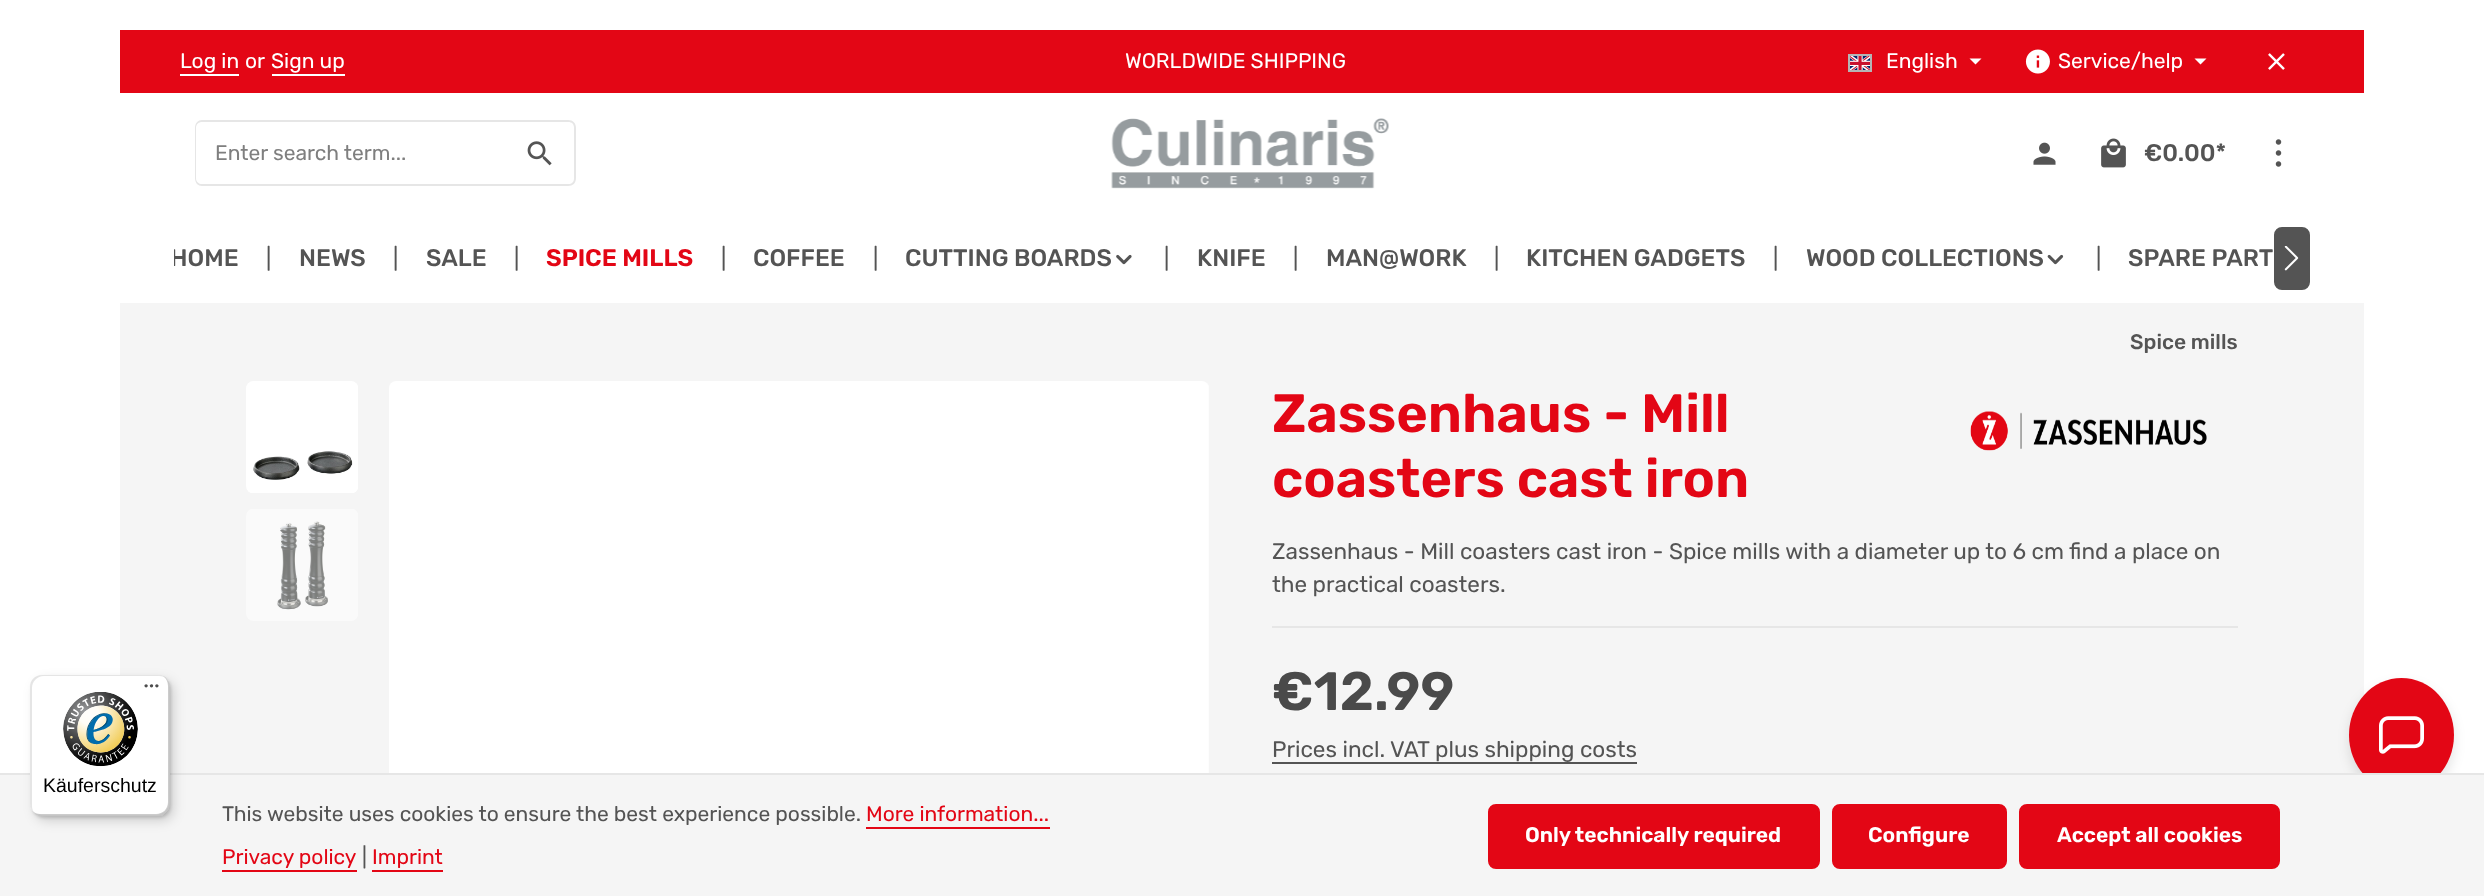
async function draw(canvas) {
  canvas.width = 2484;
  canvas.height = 896;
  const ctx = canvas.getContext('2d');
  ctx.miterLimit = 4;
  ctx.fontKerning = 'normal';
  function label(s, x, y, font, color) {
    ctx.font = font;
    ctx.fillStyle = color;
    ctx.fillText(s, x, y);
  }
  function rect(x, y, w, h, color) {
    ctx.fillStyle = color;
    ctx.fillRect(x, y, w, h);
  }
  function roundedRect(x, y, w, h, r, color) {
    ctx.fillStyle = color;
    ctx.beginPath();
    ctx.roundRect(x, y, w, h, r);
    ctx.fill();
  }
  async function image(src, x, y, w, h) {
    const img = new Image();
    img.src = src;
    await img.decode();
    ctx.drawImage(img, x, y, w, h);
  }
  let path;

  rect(0, 0, 2484, 896, '#fff');
  rect(120, 303, 2244, 470, '#f5f5f5');
  ctx.fillStyle = '#0000001a';
  ctx.filter = 'blur(6px)';
  ctx.beginPath();
  ctx.roundRect(2349, 684, 105, 114, 52.5);
  ctx.fill();
  ctx.filter = 'none';
  ctx.fillStyle = '#e30615';
  ctx.beginPath();
  ctx.ellipse(2401.5, 735, 52.5, 57, 0, 0, 2 * Math.PI);
  ctx.fill();
  rect(0, 775, 2484, 121, '#f5f5f5');
  rect(0, 773, 2484, 2, '#e6e6e6');
  ctx.fillStyle = '#00000026';
  ctx.filter = 'blur(6px)';
  ctx.beginPath();
  ctx.roundRect(35, 680, 139, 141, 12);
  ctx.fill();
  ctx.filter = 'none';
  ctx.filter = 'blur(1.5px)';
  ctx.beginPath();
  ctx.roundRect(32, 677, 139, 141, 12);
  ctx.fill();
  ctx.filter = 'none';
  roundedRect(30, 675, 140, 141, 12, '#fff');
  ctx.fillStyle = '#0000001a';
  path = new Path2D('M44 676H159C162 676 165 677 167 679C165 677 162 675 158 675H42C35 675 30 680 30 687V804C30 808 32 811 35 814C33 811 32 809 32 806V688C32 682 37 676 44 676Z');
  ctx.fill(path);
  ctx.fillStyle = '#00000033';
  path = new Path2D('M32 811C35 814 38 816 42 816H158C165 816 170 811 170 804V687C170 682 167 678 163 676C166 678 168 682 168 686V802C168 809 163 814 156 814H40C37 814 35 813 32 811Z');
  ctx.fill(path);
  ctx.fillStyle = '#32323233';
  path = new Path2D('M34 813C36 815 39 816 42 816H158C165 816 170 811 170 804V687C170 683 168 680 166 678C168 680 169 683 169 686V803C169 810 163 815 157 815H41C38 815 36 814 34 813Z');
  ctx.fill(path);
  ctx.fillStyle = '#ffffff4d';
  path = new Path2D('M33 812C35 814 38 816 42 816H158C165 816 170 811 170 804V687C170 682 168 679 164 677C167 679 169 682 169 686V803C169 810 163 815 157 815H41C38 815 35 814 33 812Z');
  ctx.fill(path);
  await image('assets/img1.png', 144, 684, 15, 4);
  await image('assets/img2.png', 63, 692, 75, 75);
  label('Käuferschutz', 43, 792, '19.5px Liberation Sans', '#000');
  rect(120, 30, 2244, 63, '#e30615');
  label('Log in', 180, 68, '300 21px Rubik', '#fff');
  rect(180, 74, 59, 2, '#fff');
  label('or', 245, 68, '300 21px Rubik', '#fff');
  label('Sign up', 271, 68, '300 21px Rubik', '#fff');
  rect(272, 74, 73, 2, '#fff');
  label('WORLDWIDE SHIPPING', 1125, 68, '300 21px Rubik', '#fff');
  await image('assets/img3.png', 1850, 56, 20, 14);
  ctx.strokeStyle = '#b5b5b5';
  ctx.lineWidth = 2;
  ctx.strokeRect(1849, 55, 22, 16);
  label('English', 1886, 68, '300 21px Rubik', '#fff');
  path = new Path2D('M1969.5 58.5H1981.5L1975.5 64.5Z');
  ctx.fill(path);
  await image('assets/img4.png', 2025, 49, 25, 25);
  label('Service/help', 2058, 68, '300 21px Rubik', '#fff');
  path = new Path2D('M2194.5 58.5H2206.5L2200.5 64.5Z');
  ctx.fill(path);
  await image('assets/img5.png', 2268, 53, 17, 17);
  ctx.fillStyle = '#e6e6e6';
  path = new Path2D('M202 120H507V186H202C198 186 195 183 195 178V128C195 123 198 120 202 120ZM202 122H507V184H202C199 184 196 182 196 178V128C196 124 199 122 202 122Z');
  ctx.fill(path, 'evenodd');
  label('Enter search term...', 215, 160, '300 21px Rubik', '#7f7f7f');
  ctx.fillStyle = '#fff';
  ctx.beginPath();
  ctx.roundRect(506, 120, 70, 66, [0, 8, 8, 0]);
  ctx.fill();
  ctx.fillStyle = '#e6e6e6';
  path = new Path2D('M506 120H568C573 120 576 123 576 128V178C576 183 573 186 568 186H506ZM506 122H568C572 122 574 124 574 128V178C574 182 572 184 568 184H506Z');
  ctx.fill(path, 'evenodd');
  await image('assets/img6.png', 527, 141, 25, 25);
  await image('assets/img7.png', 1111, 118, 278, 71);
  await image('assets/img8.png', 2033, 142, 23, 23);
  await image('assets/img9.png', 2101, 138, 25, 30);
  label('€0.00*', 2144, 161, '300 24px "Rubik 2"', '#545454');
  await image('assets/img10.png', 2275, 139, 7, 28);
  ctx.save();
  ctx.beginPath();
  ctx.rect(174, 213, 95, 90);
  ctx.clip();
  label('HOME', 170, 266, '300 24px "Rubik 2"', '#545454');
  ctx.restore();
  label('|', 266, 266, '300 22.5px Rubik', '#545454');
  label('NEWS', 299, 266, '300 24px "Rubik 2"', '#545454');
  label('|', 393, 266, '300 22.5px Rubik', '#545454');
  label('SALE', 426, 266, '300 24px "Rubik 2"', '#545454');
  label('|', 514, 266, '300 22.5px Rubik', '#545454');
  label('SPICE MILLS', 546, 266, '600 24px Rubik', '#e30615');
  label('|', 721, 266, '300 22.5px Rubik', '#545454');
  label('COFFEE', 753, 266, '300 24px "Rubik 2"', '#545454');
  label('|', 873, 266, '300 22.5px Rubik', '#545454');
  label('CUTTING BOARDS', 905, 266, '300 24px "Rubik 2"', '#545454');
  await image('assets/img11.png', 1116, 254, 16, 11);
  label('|', 1164, 266, '300 22.5px Rubik', '#545454');
  label('KNIFE', 1197, 266, '300 24px "Rubik 2"', '#545454');
  label('|', 1293, 266, '300 22.5px Rubik', '#545454');
  label('MAN@WORK', 1326, 266, '300 24px "Rubik 2"', '#545454');
  label('|', 1494, 266, '300 22.5px Rubik', '#545454');
  label('KITCHEN GADGETS', 1526, 266, '300 24px "Rubik 2"', '#545454');
  label('|', 1773, 266, '300 22.5px Rubik', '#545454');
  label('WOOD COLLECTIONS', 1806, 266, '300 24px "Rubik 2"', '#545454');
  await image('assets/img12.png', 2047, 254, 17, 11);
  label('|', 2096, 266, '300 22.5px Rubik', '#545454');
  label('SPARE PART', 2128, 266, '300 24px "Rubik 2"', '#545454');
  ctx.beginPath();
  ctx.roundRect(2275, 228, 34, 61, 7);
  ctx.fill();
  ctx.strokeStyle = '#545454';
  ctx.stroke();
  await image('assets/img13.png', 2284, 246, 15, 25);
  label('Spice mills', 2130, 349, '300 21px "Rubik 2"', '#545454');
  await image('assets/img14.png', 246, 381, 112, 112);
  await image('assets/img15.png', 246, 509, 112, 112);
  await image('assets/img16.png', 389, 381, 820, 392);
  label('Zassenhaus - Mill', 1272, 432, '600 54px Rubik', '#e30615');
  label('coasters cast iron', 1272, 497, '600 54px Rubik', '#e30615');
  await image('assets/img17.png', 1970, 411, 237, 40);
  rect(1272, 626, 966, 2, '#e6e6e6');
  label('Zassenhaus - Mill coasters cast iron - Spice mills with a diameter up to 6 cm find a place on', 1272, 559, '300 22.5px Rubik', '#545454');
  label('the practical coasters.', 1272, 592, '300 22.5px Rubik', '#545454');
  label('€12.99', 1272, 710, '600 54px Rubik', '#4a4a4a');
  label('Prices incl. VAT plus shipping costs', 1272, 757, '300 22.5px Rubik', '#545454');
  rect(1272, 762, 365, 2, '#545454');
  await image('assets/img18.png', 2379, 716, 45, 38);
  label('This website uses cookies to ensure the best experience possible.', 222, 821, '300 21px Rubik', '#545454');
  label('More information...', 866, 821, '300 21px Rubik', '#e30615');
  rect(866, 827, 184, 2, '#e30615');
  label('Privacy policy', 222, 864, '300 21px Rubik', '#e30615');
  rect(222, 870, 135, 2, '#e30615');
  label('|', 362, 864, '300 21px Rubik', '#545454');
  label('Imprint', 372, 864, '300 21px Rubik', '#e30615');
  rect(372, 870, 71, 2, '#e30615');
  ctx.beginPath();
  ctx.roundRect(1489, 805, 330, 63, 7);
  ctx.fill();
  ctx.strokeStyle = '#e30615';
  ctx.stroke();
  label('Only technically required', 1525, 842, '600 21px Rubik', '#fff');
  ctx.fillStyle = '#e30615';
  ctx.beginPath();
  ctx.roundRect(1833, 805, 173, 63, 7);
  ctx.fill();
  ctx.stroke();
  label('Configure', 1868, 842, '600 21px Rubik', '#fff');
  ctx.fillStyle = '#e30615';
  ctx.beginPath();
  ctx.roundRect(2020, 805, 259, 63, 7);
  ctx.fill();
  ctx.stroke();
  label('Accept all cookies', 2057, 842, '600 21px Rubik', '#fff');
}

draw(document.querySelector('canvas'));
